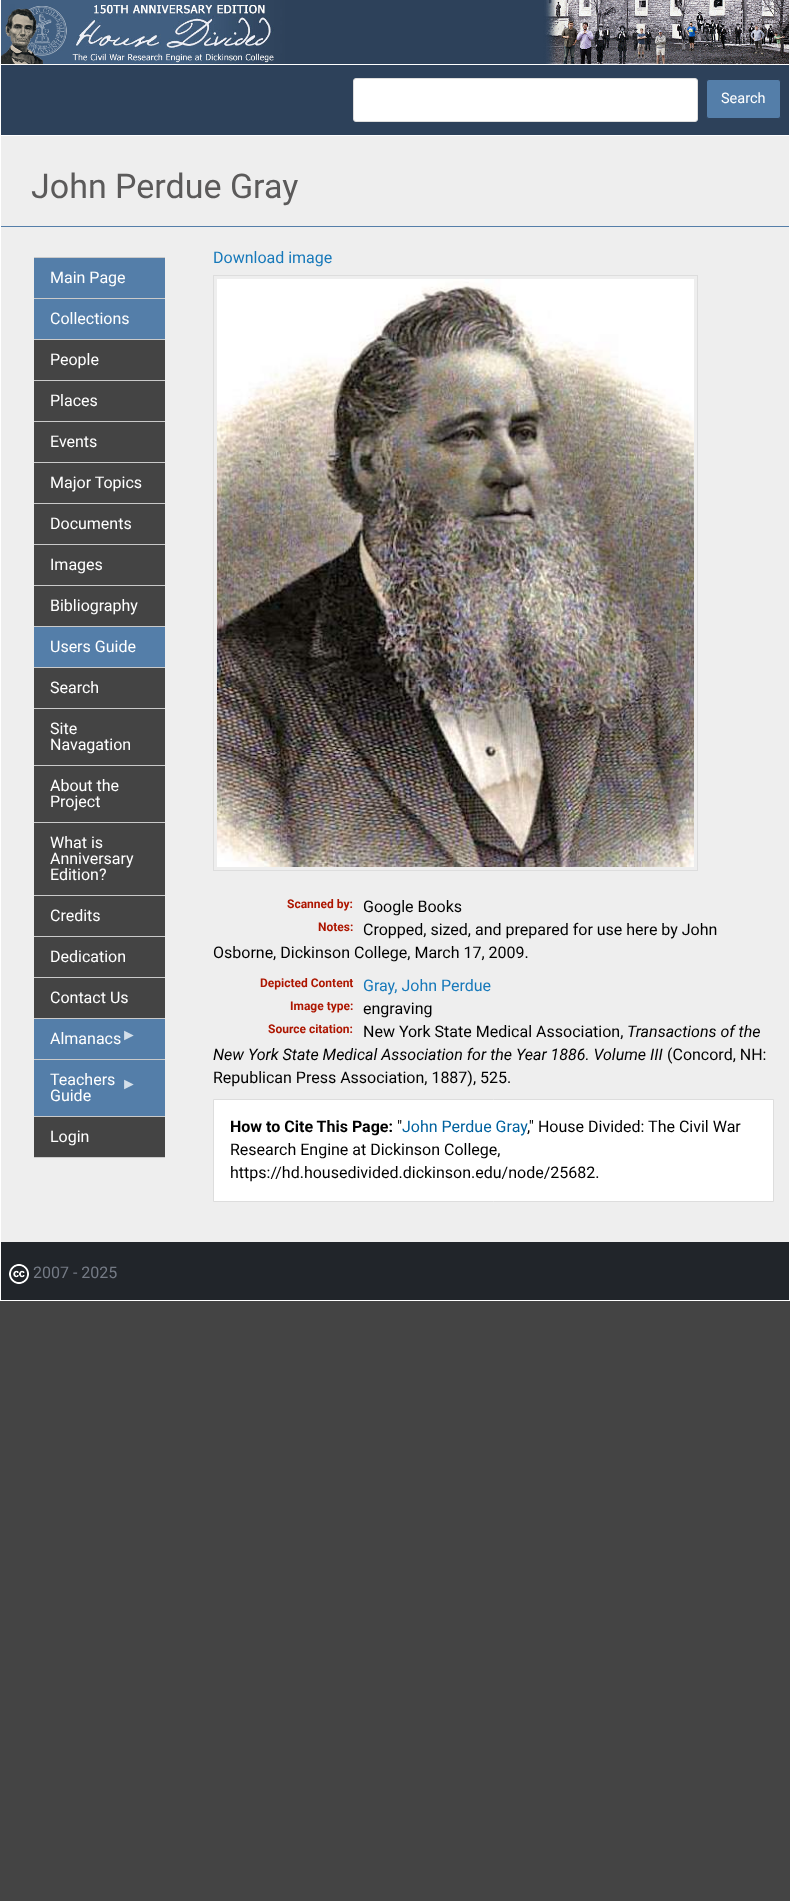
async function draw(canvas) {
  canvas.width = 790;
  canvas.height = 1901;
  const ctx = canvas.getContext('2d');
  ctx.miterLimit = 4;
  ctx.fontKerning = 'normal';
  function label(s, x, y, font, color) {
    ctx.font = font;
    ctx.fillStyle = color;
    ctx.fillText(s, x, y);
  }
  function rect(x, y, w, h, color) {
    ctx.fillStyle = color;
    ctx.fillRect(x, y, w, h);
  }
  async function image(src, x, y, w, h) {
    const img = new Image();
    img.src = src;
    await img.decode();
    ctx.drawImage(img, x, y, w, h);
  }

  rect(0, 0, 790, 1901, '#444');
  rect(0, 0, 790, 1301, '#fff');
  await image('assets/img1.png', 1, 0, 788, 64);
  rect(1, 65, 788, 70, '#2d415a');
  ctx.fillStyle = '#fff';
  ctx.beginPath();
  ctx.roundRect(353.5, 78.5, 344, 43, 2.5);
  ctx.fill();
  ctx.strokeStyle = '#ddd';
  ctx.stroke();
  ctx.fillStyle = '#547ea9';
  ctx.beginPath();
  ctx.roundRect(706.5, 79.5, 74, 39, 2.5);
  ctx.fill();
  ctx.strokeStyle = '#2d415a';
  ctx.stroke();
  label('Search', 721, 103, '14.5px Roboto', '#fff');
  rect(1, 136, 788, 90, '#eee');
  rect(1, 226, 788, 1, '#547ea9');
  label('John Perdue Gray', 31, 198, '34px Roboto', '#5b5a5a');
  rect(1, 227, 788, 1015, '#eee');
  rect(34, 257, 131, 1, '#cacaca');
  rect(34, 298, 131, 1, '#cacaca');
  rect(34, 258, 131, 40, '#547ea9');
  label('Main Page', 50, 283, '16px Roboto', '#fff');
  rect(34, 339, 131, 1, '#cacaca');
  rect(34, 299, 131, 40, '#547ea9');
  label('Collections', 50, 324, '16px Roboto', '#fff');
  rect(34, 380, 131, 1, '#cacaca');
  rect(34, 340, 131, 40, '#444');
  label('People', 50, 365, '16px Roboto', '#fff');
  rect(34, 421, 131, 1, '#cacaca');
  rect(34, 381, 131, 40, '#444');
  label('Places', 50, 406, '16px Roboto', '#fff');
  rect(34, 462, 131, 1, '#cacaca');
  rect(34, 422, 131, 40, '#444');
  label('Events', 50, 447, '16px Roboto', '#fff');
  rect(34, 503, 131, 1, '#cacaca');
  rect(34, 463, 131, 40, '#444');
  label('Major Topics', 50, 488, '16px Roboto', '#fff');
  rect(34, 544, 131, 1, '#cacaca');
  rect(34, 504, 131, 40, '#444');
  label('Documents', 50, 529, '16px Roboto', '#fff');
  rect(34, 585, 131, 1, '#cacaca');
  rect(34, 545, 131, 40, '#444');
  label('Images', 50, 570, '16px Roboto', '#fff');
  rect(34, 626, 131, 1, '#cacaca');
  rect(34, 586, 131, 40, '#444');
  label('Bibliography', 50, 611, '16px Roboto', '#fff');
  rect(34, 667, 131, 1, '#cacaca');
  rect(34, 627, 131, 40, '#547ea9');
  label('Users Guide', 50, 652, '16px Roboto', '#fff');
  rect(34, 708, 131, 1, '#cacaca');
  rect(34, 668, 131, 40, '#444');
  label('Search', 50, 693, '16px Roboto', '#fff');
  rect(34, 765, 131, 1, '#cacaca');
  rect(34, 709, 131, 56, '#444');
  label('Site', 50, 734, '16px Roboto', '#fff');
  label('Navagation', 50, 750, '16px Roboto', '#fff');
  rect(34, 822, 131, 1, '#cacaca');
  rect(34, 766, 131, 56, '#444');
  label('About the', 50, 791, '16px Roboto', '#fff');
  label('Project', 50, 807, '16px Roboto', '#fff');
  rect(34, 895, 131, 1, '#cacaca');
  rect(34, 823, 131, 72, '#444');
  label('What is', 50, 848, '16px Roboto', '#fff');
  label('Anniversary', 50, 864, '16px Roboto', '#fff');
  label('Edition?', 50, 880, '16px Roboto', '#fff');
  rect(34, 936, 131, 1, '#cacaca');
  rect(34, 896, 131, 40, '#444');
  label('Credits', 50, 921, '16px Roboto', '#fff');
  rect(34, 977, 131, 1, '#cacaca');
  rect(34, 937, 131, 40, '#444');
  label('Dedication', 50, 962, '16px Roboto', '#fff');
  rect(34, 1018, 131, 1, '#cacaca');
  rect(34, 978, 131, 40, '#444');
  label('Contact Us', 50, 1003, '16px Roboto', '#fff');
  rect(34, 1059, 131, 1, '#cacaca');
  rect(34, 1019, 131, 40, '#547ea9');
  label('Almanacs', 50, 1044, '16px Roboto', '#fff');
  label('►', 121, 1040, '16px Liberation Sans', '#d4dfea');
  rect(34, 1116, 131, 1, '#cacaca');
  rect(34, 1060, 131, 56, '#547ea9');
  label('Teachers', 50, 1085, '16px Roboto', '#fff');
  label('►', 121, 1089, '16px Liberation Sans', '#d4dfea');
  label('Guide', 50, 1101, '16px Roboto', '#fff');
  rect(34, 1157, 131, 1, '#cacaca');
  rect(34, 1117, 131, 40, '#444');
  label('Login', 50, 1142, '16px Roboto', '#fff');
  label('Download image', 213, 263, '16px Roboto', '#1779ba');
  ctx.strokeStyle = '#ddd';
  ctx.strokeRect(213.5, 275.5, 484, 595);
  await image('assets/img2.png', 217, 279, 477, 588);
  label('Scanned by:', 287, 908, 'bold 12px Roboto', '#ad1600');
  label('Google Books', 363, 912, '16px Roboto', '#000');
  label('Cropped, sized, and prepared for use here by John', 363, 935, '16px Roboto', '#000');
  label('Osborne, Dickinson College, March 17, 2009.', 213, 958, '16px Roboto', '#000');
  label('Notes:', 318, 931, 'bold 12px Roboto', '#ad1600');
  label('Depicted Content', 260, 987, 'bold 12px Roboto', '#ad1600');
  label('Gray, John Perdue', 363, 991, '16px Roboto', '#1779ba');
  label('Image type:', 290, 1010, 'bold 12px Roboto', '#ad1600');
  label('engraving', 363, 1014, '16px Roboto', '#000');
  label('New York State Medical Association,', 363, 1037, '16px Roboto', '#000');
  label('Transactions of the', 627, 1037, 'italic 16px Roboto', '#000');
  label('New York State Medical Association for the Year 1886. Volume III', 213, 1060, 'italic 16px Roboto', '#000');
  label('(Concord, NH:', 667, 1060, '16px Roboto', '#000');
  label('Republican Press Association, 1887), 525.', 213, 1083, '16px Roboto', '#000');
  label('Source citation:', 268, 1033, 'bold 12px Roboto', '#ad1600');
  ctx.fillStyle = '#fff';
  ctx.beginPath();
  ctx.rect(213.5, 1099.5, 560, 102);
  ctx.fill();
  ctx.stroke();
  label('How to Cite This Page:', 230, 1132, 'bold 16px Roboto', '#000');
  label('"', 397, 1132, '16px Roboto', '#000');
  label('John Perdue Gray', 402, 1132, '16px Roboto', '#00629f');
  label('," House Divided: The Civil War', 527, 1132, '16px Roboto', '#000');
  label('Research Engine at Dickinson College,', 230, 1155, '16px Roboto', '#000');
  label('https://hd.housedivided.dickinson.edu/node/25682.', 230, 1178, '16px Roboto', '#000');
  rect(1, 1242, 788, 58, '#21252a');
  await image('assets/img3.png', 9, 1264, 20, 20);
  label('2007 - 2025', 33, 1278, '16px Roboto', '#747a85');
}

draw(document.querySelector('canvas'));
